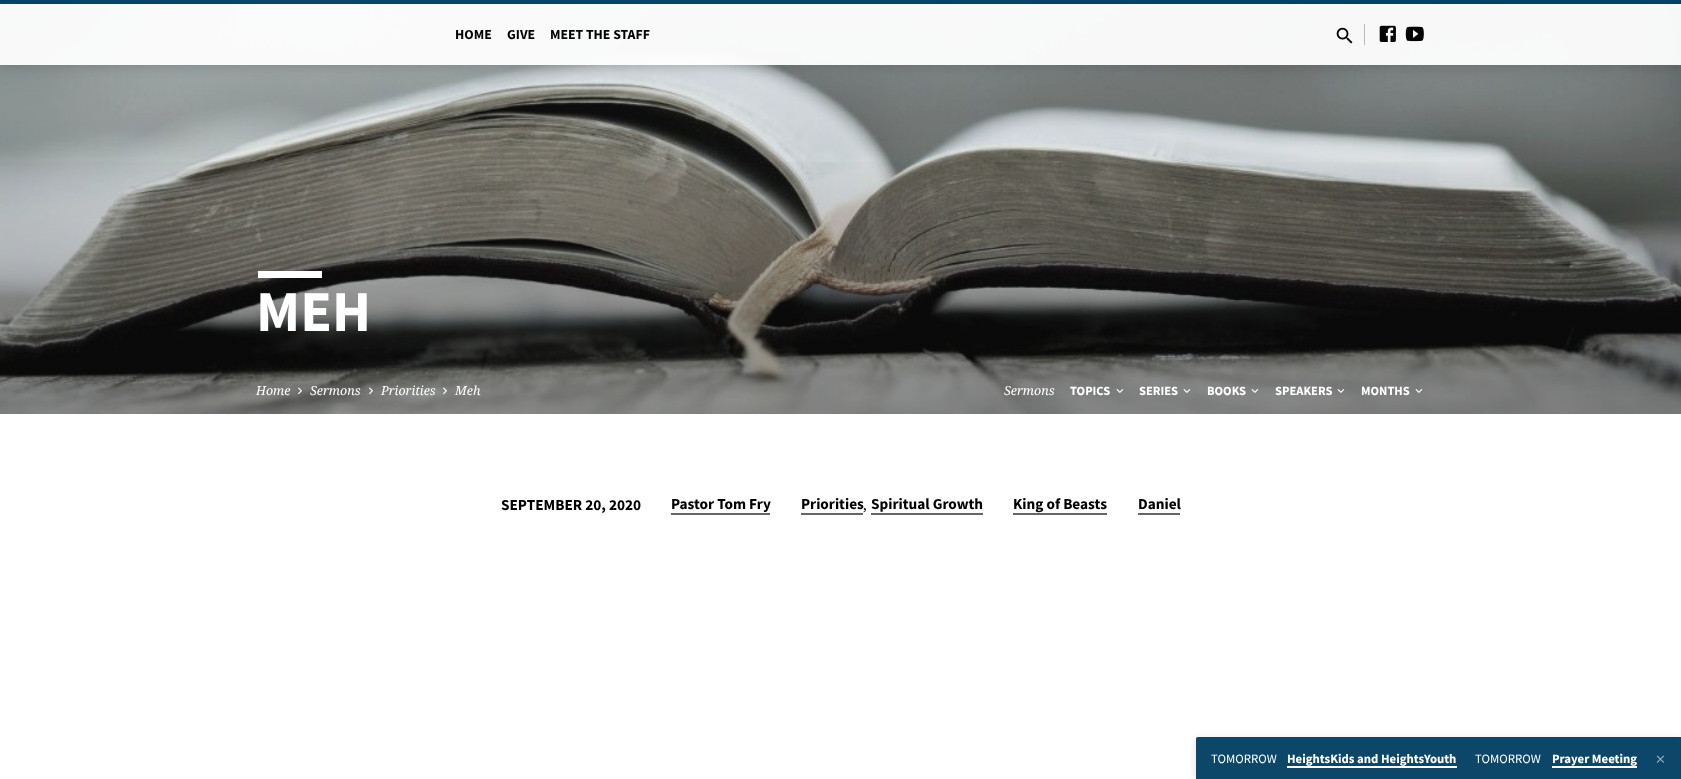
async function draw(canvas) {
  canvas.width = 1681;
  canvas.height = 779;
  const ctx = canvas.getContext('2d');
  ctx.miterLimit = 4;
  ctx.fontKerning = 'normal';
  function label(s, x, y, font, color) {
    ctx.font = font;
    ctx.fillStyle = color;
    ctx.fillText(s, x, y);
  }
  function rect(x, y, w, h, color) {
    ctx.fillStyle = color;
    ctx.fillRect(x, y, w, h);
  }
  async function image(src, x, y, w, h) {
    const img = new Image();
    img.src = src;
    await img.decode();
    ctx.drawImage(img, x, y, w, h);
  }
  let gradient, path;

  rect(0, 0, 1681, 779, '#fff');
  await image('assets/img4.png', 0, 0, 1681, 414);
  rect(0, 0, 1681, 4, '#004368f2');
  rect(0, 4, 1681, 61, '#fffffff2');
  ctx.save();
  path = new Path2D('M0 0H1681V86H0ZM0 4H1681V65H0Z');
  ctx.clip(path, 'evenodd');
  ctx.fillStyle = '#00000024';
  ctx.filter = 'blur(6px)';
  ctx.beginPath();
  ctx.rect(0, 6, 1681, 61);
  ctx.fill();
  ctx.filter = 'none';
  ctx.restore();
  label('HOME', 455, 39, 'bold 13.75px Source Sans Pro', '#000');
  label('GIVE', 507, 39, 'bold 13.75px Source Sans Pro', '#000');
  label('MEET THE STAFF', 550, 39, 'bold 13.75px Source Sans Pro', '#000');
  await image('assets/img1.png', 1336, 27, 17, 17);
  rect(1364, 24, 1, 21, '#bbb');
  await image('assets/img2.png', 1379, 25, 17, 17);
  await image('assets/img3.png', 1405, 26, 19, 16);
  gradient = ctx.createLinearGradient(841, 0, 841, 414);
  gradient.addColorStop(0, '#00000000');
  gradient.addColorStop(0.36, '#00000000');
  gradient.addColorStop(0.76, '#00000047');
  gradient.addColorStop(1, '#00000047');
  ctx.fillStyle = gradient;
  ctx.fillRect(0, 162, 1681, 252);
  rect(258, 271, 64, 7, '#fff');
  label('MEH', 256, 331, 'bold 58px Source Sans Pro', '#fff');
  label('Home', 256, 395, 'italic 12.5px Noto Serif', '#fff');
  await image('assets/img5.png', 298, 387, 4, 8);
  label('Sermons', 310, 395, 'italic 12.5px Noto Serif', '#fff');
  await image('assets/img6.png', 369, 387, 4, 8);
  label('Priorities', 381, 395, 'italic 12.5px Noto Serif', '#fff');
  await image('assets/img7.png', 443, 387, 4, 8);
  label('Meh', 455, 395, 'italic 12.5px Noto Serif', '#fff');
  label('Sermons', 1004, 395, 'italic 12.5px Noto Serif', '#fff');
  label('TOPICS', 1070, 395, 'bold 12.5px Source Sans Pro', '#fff');
  await image('assets/img8.png', 1116, 389, 8, 4);
  label('SERIES', 1139, 395, 'bold 12.5px Source Sans Pro', '#fff');
  await image('assets/img9.png', 1183, 389, 8, 4);
  label('BOOKS', 1207, 395, 'bold 12.5px Source Sans Pro', '#fff');
  await image('assets/img10.png', 1251, 389, 8, 4);
  label('SPEAKERS', 1275, 395, 'bold 12.5px Source Sans Pro', '#fff');
  await image('assets/img11.png', 1337, 389, 8, 4);
  label('MONTHS', 1361, 395, 'bold 12.5px Source Sans Pro', '#fff');
  await image('assets/img12.png', 1415, 389, 8, 4);
  label('SEPTEMBER 20, 2020', 501, 510, 'bold 15.25px Source Sans Pro', '#000');
  label('Pastor Tom Fry', 671, 509, 'bold 15.25px Source Sans Pro', '#000');
  rect(671, 513, 99, 2, '#666');
  label('Priorities', 801, 509, 'bold 15.25px Source Sans Pro', '#000');
  rect(801, 513, 62, 2, '#666');
  label(',', 863, 510, '15.25px Noto Serif', '#000');
  label('Spiritual Growth', 871, 509, 'bold 15.25px Source Sans Pro', '#000');
  rect(871, 513, 112, 2, '#666');
  label('King of Beasts', 1013, 509, 'bold 15.25px Source Sans Pro', '#000');
  rect(1013, 513, 94, 2, '#666');
  label('Daniel', 1138, 509, 'bold 15.25px Source Sans Pro', '#000');
  rect(1138, 513, 42, 2, '#666');
  ctx.fillStyle = '#0000001f';
  ctx.filter = 'blur(5px)';
  ctx.beginPath();
  ctx.roundRect(1196, 739, 485, 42, 2);
  ctx.fill();
  ctx.filter = 'none';
  ctx.fillStyle = '#0d4c70';
  ctx.beginPath();
  ctx.roundRect(1196, 737, 485, 42, [2, 0, 0, 0]);
  ctx.fill();
  rect(1196, 737, 485, 42, '#00000012');
  label('TOMORROW', 1211, 763, '12.75px Source Sans Pro', '#fff');
  label('HeightsKids and HeightsYouth', 1287, 763, 'bold 12.75px Source Sans Pro', '#fff');
  rect(1287, 766, 170, 2, '#fff');
  label('TOMORROW', 1475, 763, '12.75px Source Sans Pro', '#fff');
  label('Prayer Meeting', 1552, 763, 'bold 12.75px Source Sans Pro', '#fff');
  rect(1552, 766, 85, 2, '#fff');
  await image('assets/img13.png', 1656, 755, 8, 8);
}

draw(document.querySelector('canvas'));
